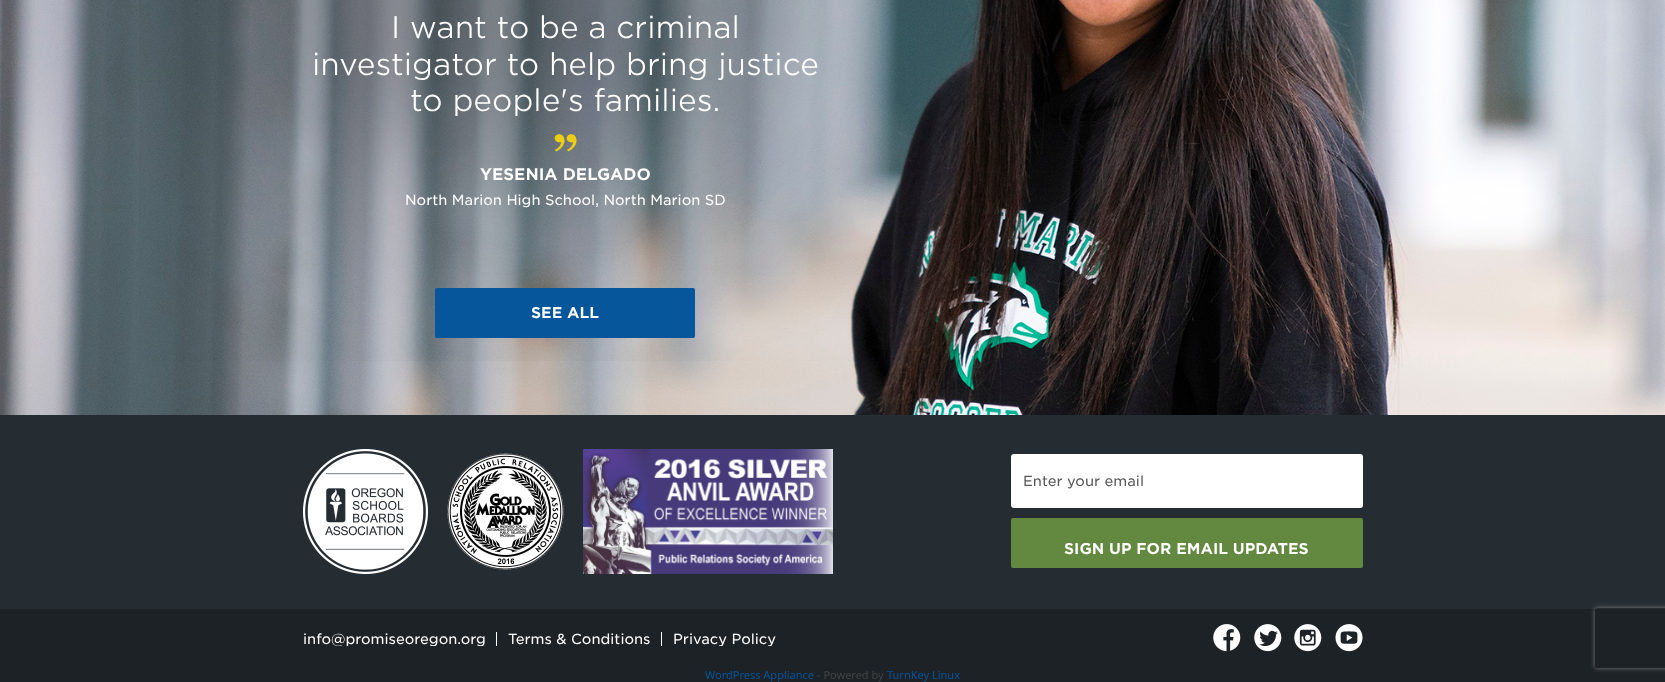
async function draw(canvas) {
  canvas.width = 1665;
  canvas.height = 682;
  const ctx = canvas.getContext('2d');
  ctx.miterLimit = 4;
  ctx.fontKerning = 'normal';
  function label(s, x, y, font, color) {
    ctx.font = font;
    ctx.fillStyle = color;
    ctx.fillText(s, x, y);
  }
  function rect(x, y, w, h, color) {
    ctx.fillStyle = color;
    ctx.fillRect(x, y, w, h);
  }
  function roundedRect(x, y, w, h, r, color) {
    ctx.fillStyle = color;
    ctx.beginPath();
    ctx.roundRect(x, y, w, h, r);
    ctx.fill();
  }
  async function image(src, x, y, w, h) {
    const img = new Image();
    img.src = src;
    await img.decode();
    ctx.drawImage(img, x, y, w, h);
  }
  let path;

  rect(0, 0, 1665, 682, '#1d2227');
  await image('assets/img1.png', 0, 0, 1665, 415);
  await image('assets/img2.png', 139, 0, 745, 361);
  label('I want to be a criminal', 391, 38, '300 30px "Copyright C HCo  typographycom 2"', '#fff');
  label('investigator to help bring justice', 312, 75, '300 30px "Copyright C HCo  typographycom 2"', '#fff');
  label('to people\'s families.', 410, 111, '300 30px "Copyright C HCo  typographycom 2"', '#fff');
  await image('assets/img3.png', 554, 134, 23, 18);
  label('YESENIA DELGADO', 480, 180, '16px "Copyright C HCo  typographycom"', '#fff');
  label('North Marion High School, North Marion SD', 405, 205, '300 14px "Copyright C HCo  typographycom"', '#fff');
  roundedRect(435, 288, 260, 50, 2, '#06569b');
  label('SEE ALL', 531, 318, '15px "Copyright C HCo  typographycom"', '#fff');
  rect(0, 415, 1665, 194, '#252c32');
  await image('assets/img4.png', 303, 449, 125, 125);
  await image('assets/img5.png', 447, 453, 117, 117);
  await image('assets/img6.png', 583, 449, 250, 125);
  roundedRect(1011, 454, 352, 54, 3, '#fff');
  label('Enter your email', 1023, 486, '300 14px "Copyright C HCo  typographycom"', '#585858');
  roundedRect(1011, 518, 352, 50, 2, '#638941');
  label('SIGN UP FOR EMAIL UPDATES', 1064, 554, '15px "Copyright C HCo  typographycom"', '#fff');
  ctx.save();
  ctx.beginPath();
  ctx.rect(303, 632, 484, 14);
  ctx.clip();
  label('info@promiseoregon.org', 303, 644, '300 14px "Copyright C HCo  typographycom"', '#fff');
  ctx.restore();
  rect(496, 632, 1, 14, '#fff');
  label('Terms & Conditions', 508, 644, '300 14px "Copyright C HCo  typographycom"', '#fff');
  rect(661, 632, 1, 14, '#fff');
  ctx.save();
  ctx.beginPath();
  ctx.rect(303, 632, 484, 14);
  ctx.clip();
  label('Privacy Policy', 673, 644, '300 14px "Copyright C HCo  typographycom"', '#fff');
  ctx.restore();
  await image('assets/img7.png', 1213, 624, 28, 28);
  await image('assets/img8.png', 1254, 624, 28, 28);
  await image('assets/img9.png', 1294, 624, 28, 28);
  await image('assets/img10.png', 1335, 624, 28, 28);
  ctx.save();
  path = new Path2D('M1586 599H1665V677H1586ZM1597 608H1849C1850 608 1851 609 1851 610V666C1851 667 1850 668 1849 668H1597C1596 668 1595 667 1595 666V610C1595 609 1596 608 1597 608Z');
  ctx.clip(path, 'evenodd');
  ctx.fillStyle = '#808080';
  ctx.filter = 'blur(2.5px)';
  ctx.beginPath();
  ctx.roundRect(1595, 608, 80, 60, 2);
  ctx.fill();
  ctx.filter = 'none';
  ctx.restore();
  label('WordPress Appliance', 705, 679, '11px Noto Sans', '#06569b');
  label('- Powered by', 817, 679, '11px Noto Sans', '#434343');
  label('TurnKey Linux', 887, 679, '11px Noto Sans', '#06569b');
}

draw(document.querySelector('canvas'));
